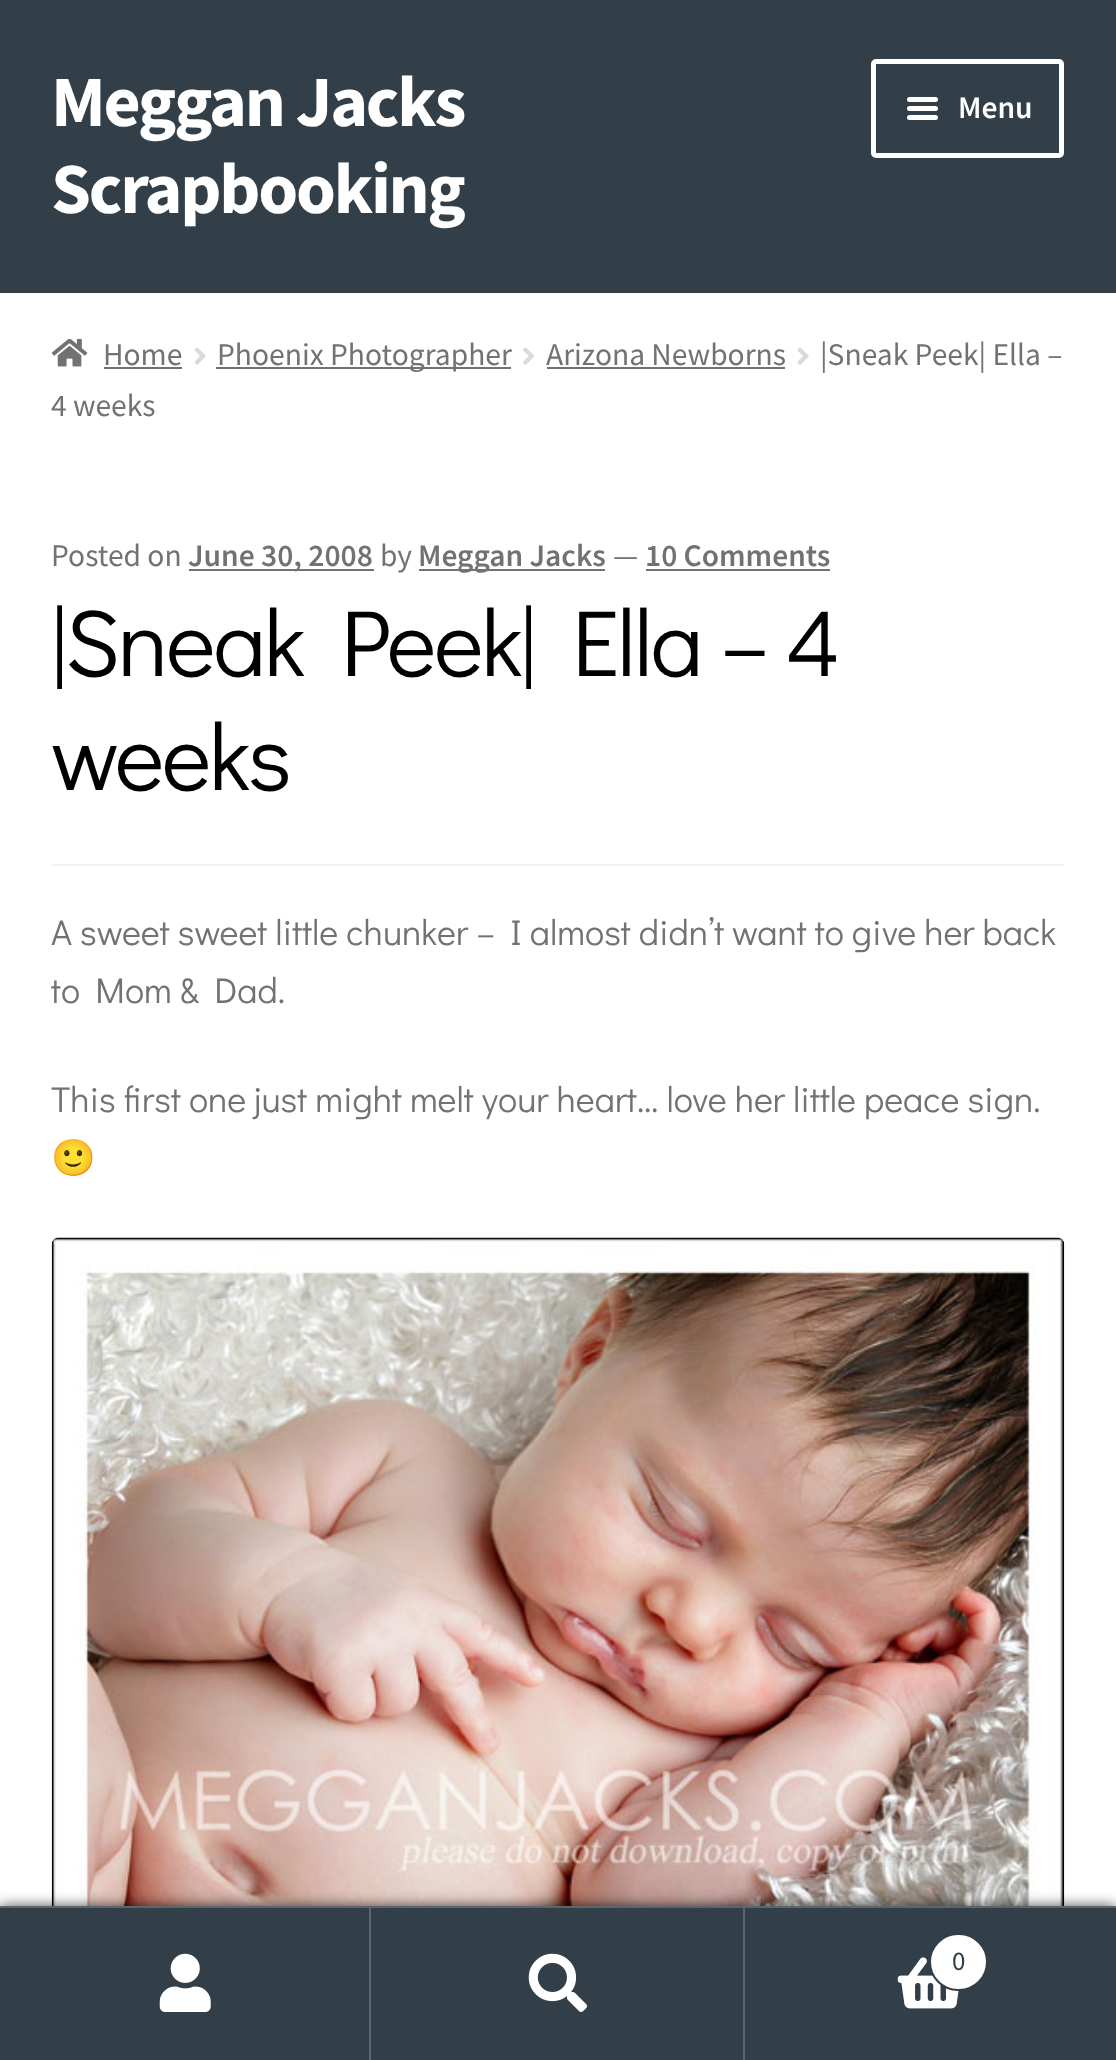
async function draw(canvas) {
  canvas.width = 1116;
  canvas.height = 2060;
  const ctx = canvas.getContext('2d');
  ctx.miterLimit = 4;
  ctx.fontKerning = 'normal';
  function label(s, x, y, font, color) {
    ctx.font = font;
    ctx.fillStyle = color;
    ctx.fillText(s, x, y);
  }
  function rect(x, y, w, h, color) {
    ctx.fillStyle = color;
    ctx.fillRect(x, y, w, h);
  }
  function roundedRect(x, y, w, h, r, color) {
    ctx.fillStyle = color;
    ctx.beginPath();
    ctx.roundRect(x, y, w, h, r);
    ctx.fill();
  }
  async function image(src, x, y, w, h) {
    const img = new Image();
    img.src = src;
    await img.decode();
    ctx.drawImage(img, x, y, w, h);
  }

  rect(0, 0, 1116, 2060, '#fff');
  rect(0, 0, 1116, 293, '#323f48');
  ctx.letterSpacing = '-2.25px';
  label('Meggan Jacks', 51, 126, 'bold 72px Source Sans Pro', '#fff');
  label('Scrapbooking', 51, 213, 'bold 72px Source Sans Pro', '#fff');
  ctx.beginPath();
  ctx.roundRect(873.5, 61.5, 188, 94, 2.5);
  ctx.strokeStyle = '#fff';
  ctx.lineWidth = 5;
  ctx.stroke();
  roundedRect(907, 97, 31, 5, 2.5, '#fff');
  roundedRect(907, 106, 31, 5, 2.5, '#fff');
  ctx.letterSpacing = '0px';
  label('Menu', 958, 118, '600 31.5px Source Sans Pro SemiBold', '#fff');
  roundedRect(907, 115, 31, 5, 2.5, '#fff');
  await image('assets/img1.png', 51, 338, 37, 29);
  label('Home', 103, 365, '31.5px Source Sans Pro', '#727272');
  rect(104, 367, 78, 2, '#727272');
  await image('assets/img2.png', 194, 347, 12, 18);
  rect(216, 367, 295, 2, '#727272');
  label('Phoenix Photographer', 217, 365, '31.5px Source Sans Pro', '#727272');
  await image('assets/img3.png', 523, 347, 11, 18);
  label('Arizona Newborns', 546, 365, '31.5px Source Sans Pro', '#727272');
  rect(547, 367, 238, 2, '#727272');
  await image('assets/img2.png', 797, 347, 12, 18);
  label('|Sneak Peek| Ella –', 820, 365, '31.5px Source Sans Pro', '#727272');
  label('4 weeks', 51, 416, '31.5px Source Sans Pro', '#727272');
  rect(52, 864, 1012, 2, '#f2f2f2');
  label('Posted on', 51, 566, '31.5px Source Sans Pro', '#727272');
  rect(189, 569, 185, 2, '#727272');
  label('June 30, 2008', 188, 566, '600 31.5px Source Sans Pro SemiBold', '#727272');
  label('by', 380, 566, '31.5px Source Sans Pro', '#727272');
  rect(419, 569, 186, 2, '#727272');
  label('Meggan Jacks', 418, 566, '600 31.5px Source Sans Pro SemiBold', '#727272');
  label('—', 613, 566, '31.5px Source Sans Pro', '#727272');
  label('10 Comments', 645, 566, '600 31.5px Source Sans Pro SemiBold', '#727272');
  rect(646, 569, 184, 2, '#727272');
  ctx.letterSpacing = '-2.25px';
  label('|Sneak Peek| Ella – 4', 51, 676, '94.25px Didact Gothic', '#000');
  label('weeks', 51, 790, '94.25px Didact Gothic', '#000');
  ctx.letterSpacing = '0px';
  label('A sweet sweet little chunker – I almost didn’t want to give her back', 51, 945, '36px Didact Gothic', '#727272');
  label('to Mom & Dad.', 51, 1003, '36px Didact Gothic', '#727272');
  label('This first one just might melt your heart… love her little peace sign.', 51, 1112, '36px Didact Gothic', '#727272');
  label('🙂', 51, 1170, '36px Noto Color Emoji', '#727272');
  await image('assets/img4.png', 51, 1237, 1014, 669);
  ctx.fillStyle = '#000000b3';
  ctx.filter = 'blur(7px)';
  ctx.beginPath();
  ctx.rect(0, 1906, 1116, 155);
  ctx.fill();
  ctx.filter = 'none';
  rect(0, 1906, 1116, 2, '#5b656d');
  rect(0, 1908, 369, 152, '#323f48');
  rect(369, 1908, 2, 152, '#5b656d');
  await image('assets/img5.png', 159, 1953, 52, 59);
  rect(371, 1908, 372, 152, '#323f48');
  rect(743, 1908, 2, 152, '#5b656d');
  await image('assets/img6.png', 528, 1953, 59, 59);
  rect(745, 1908, 371, 152, '#323f48');
  await image('assets/img7.png', 897, 1957, 62, 52);
  ctx.fillStyle = '#fff';
  ctx.beginPath();
  ctx.roundRect(930, 1934, 57, 56, 28);
  ctx.fill();
  ctx.strokeStyle = '#323f48';
  ctx.lineWidth = 2;
  ctx.stroke();
  label('0', 952, 1970, '27px Source Sans Pro', '#323f48');
}

draw(document.querySelector('canvas'));
